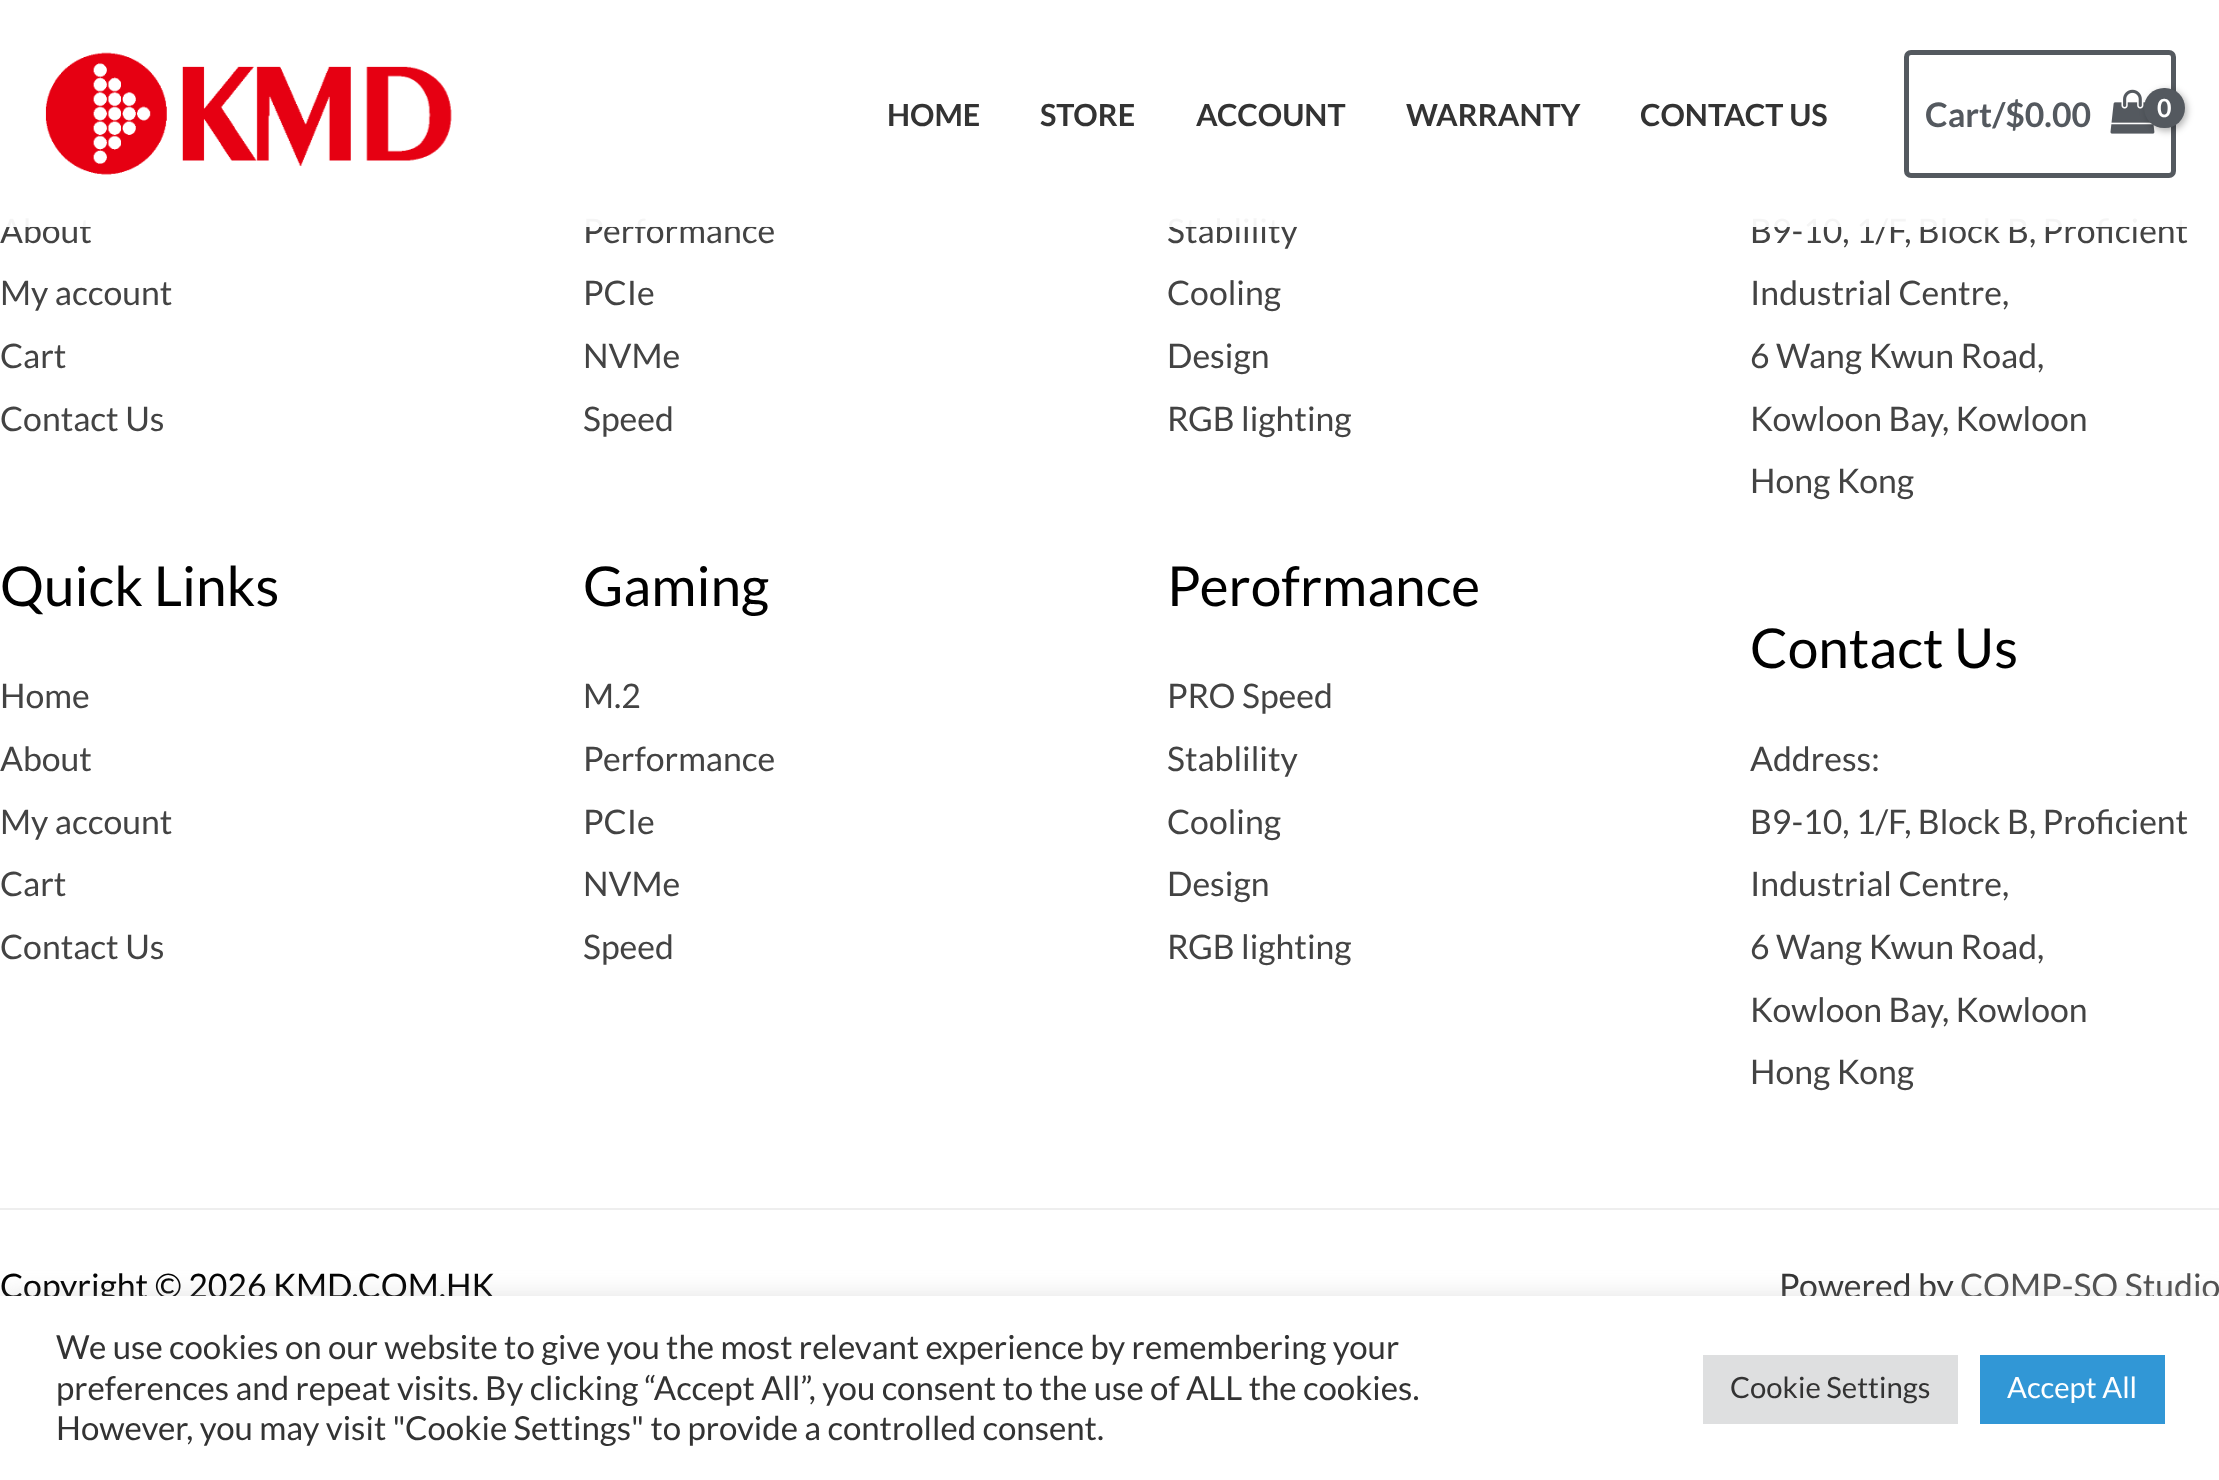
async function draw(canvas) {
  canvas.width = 2219;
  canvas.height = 1480;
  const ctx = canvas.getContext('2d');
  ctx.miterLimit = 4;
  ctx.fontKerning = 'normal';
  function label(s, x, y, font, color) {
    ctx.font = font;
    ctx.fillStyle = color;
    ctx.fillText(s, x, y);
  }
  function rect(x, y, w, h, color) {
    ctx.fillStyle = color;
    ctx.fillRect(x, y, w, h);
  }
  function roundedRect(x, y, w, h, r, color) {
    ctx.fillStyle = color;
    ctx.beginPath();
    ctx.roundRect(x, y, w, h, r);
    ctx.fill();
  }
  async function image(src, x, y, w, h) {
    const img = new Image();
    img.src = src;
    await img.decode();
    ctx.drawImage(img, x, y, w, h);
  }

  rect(0, 0, 2219, 1480, '#fff');
  label('About', 0, 243, '33.75px Lato', '#434343');
  label('Performance', 583, 243, '33.75px Lato', '#434343');
  label('Stablility', 1167, 243, '33.75px Lato', '#434343');
  label('B9-10, 1/F, Block B, Proficient', 1750, 243, '33.75px Lato', '#434343');
  rect(6, 218, 2181, 9, '#fffffff2');
  await image('assets/img1.png', 45, 52, 407, 123);
  label('HOME', 887, 126, 'bold 30.5px Lato', '#333');
  label('STORE', 1040, 126, 'bold 30.5px Lato', '#333');
  label('ACCOUNT', 1196, 126, 'bold 30.5px Lato', '#333');
  label('WARRANTY', 1406, 126, 'bold 30.5px Lato', '#333');
  label('CONTACT US', 1640, 126, 'bold 30.5px Lato', '#333');
  ctx.beginPath();
  ctx.roundRect(1906.5, 52.5, 267, 123, 4.5);
  ctx.strokeStyle = '#54595f';
  ctx.lineWidth = 5;
  ctx.stroke();
  label('Cart/$0.00', 1925, 127, 'bold 33.75px Lato', '#54595f');
  await image('assets/img2.png', 2110, 89, 45, 45);
  ctx.fillStyle = '#0000004d';
  ctx.filter = 'blur(3.5px)';
  ctx.beginPath();
  ctx.roundRect(2147, 90, 40, 41, 20);
  ctx.fill();
  ctx.filter = 'none';
  roundedRect(2144, 88, 41, 40, 20, '#54595f');
  ctx.letterSpacing = '-1px';
  label('0', 2157, 117, 'bold 25px Lato', '#fff');
  ctx.letterSpacing = '0px';
  label('My account', 0, 305, '33.75px Lato', '#434343');
  label('Cart', 0, 368, '33.75px Lato', '#434343');
  label('Contact Us', 0, 431, '33.75px Lato', '#434343');
  label('Quick Links', 0, 606, '55px Lato', '#000');
  label('Home', 0, 708, '33.75px Lato', '#434343');
  label('About', 0, 771, '33.75px Lato', '#434343');
  label('My account', 0, 834, '33.75px Lato', '#434343');
  label('Cart', 0, 896, '33.75px Lato', '#434343');
  label('Contact Us', 0, 959, '33.75px Lato', '#434343');
  label('PCIe', 583, 305, '33.75px Lato', '#434343');
  label('NVMe', 583, 368, '33.75px Lato', '#434343');
  label('Speed', 583, 431, '33.75px Lato', '#434343');
  label('Gaming', 583, 606, '55px Lato', '#000');
  label('M.2', 583, 708, '33.75px Lato', '#434343');
  label('Performance', 583, 771, '33.75px Lato', '#434343');
  label('PCIe', 583, 834, '33.75px Lato', '#434343');
  label('NVMe', 583, 896, '33.75px Lato', '#434343');
  label('Speed', 583, 959, '33.75px Lato', '#434343');
  label('Cooling', 1167, 305, '33.75px Lato', '#434343');
  label('Design', 1167, 368, '33.75px Lato', '#434343');
  label('RGB lighting', 1167, 431, '33.75px Lato', '#434343');
  label('Perofrmance', 1167, 606, '55px Lato', '#000');
  label('PRO Speed', 1167, 708, '33.75px Lato', '#434343');
  label('Stablility', 1167, 771, '33.75px Lato', '#434343');
  label('Cooling', 1167, 834, '33.75px Lato', '#434343');
  label('Design', 1167, 896, '33.75px Lato', '#434343');
  label('RGB lighting', 1167, 959, '33.75px Lato', '#434343');
  label('Industrial Centre,', 1750, 305, '33.75px Lato', '#434343');
  label('6 Wang Kwun Road,', 1750, 368, '33.75px Lato', '#434343');
  label('Kowloon Bay, Kowloon', 1750, 431, '33.75px Lato', '#434343');
  label('Hong Kong', 1750, 493, '33.75px Lato', '#434343');
  label('Contact Us', 1750, 668, '55px Lato', '#000');
  label('Address:', 1750, 771, '33.75px Lato', '#434343');
  label('B9-10, 1/F, Block B, Proficient', 1750, 834, '33.75px Lato', '#434343');
  label('Industrial Centre,', 1750, 896, '33.75px Lato', '#434343');
  label('6 Wang Kwun Road,', 1750, 959, '33.75px Lato', '#434343');
  label('Kowloon Bay, Kowloon', 1750, 1022, '33.75px Lato', '#434343');
  label('Hong Kong', 1750, 1084, '33.75px Lato', '#434343');
  rect(0, 1208, 2219, 2, '#eee');
  label('Copyright © 2026 KMD.COM.HK', 0, 1298, '33.75px Lato', '#000');
  label('Powered by', 1779, 1298, '33.75px Lato', '#333');
  label('COMP-SQ Studio', 1960, 1298, '33.75px Lato', '#4e4e4e');
  ctx.fillStyle = '#acabab4d';
  ctx.filter = 'blur(11px)';
  ctx.beginPath();
  ctx.rect(0, 1294, 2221, 184);
  ctx.fill();
  ctx.filter = 'none';
  rect(0, 1296, 2219, 184, '#fff');
  label('We use cookies on our website to give you the most relevant experience by remembering your', 56, 1359, '33px Lato', '#333');
  label('preferences and repeat visits. By clicking “Accept All”, you consent to the use of ALL the cookies.', 56, 1400, '33px Lato', '#333');
  label('However, you may visit "Cookie Settings" to provide a controlled consent.', 56, 1440, '33px Lato', '#333');
  rect(1703, 1355, 255, 69, '#dedfe0');
  label('Cookie Settings', 1730, 1398, '29.25px Lato', '#333');
  rect(1980, 1355, 185, 69, '#3197d6');
  label('Accept All', 2007, 1398, '29.25px Lato', '#fff');
}

draw(document.querySelector('canvas'));
